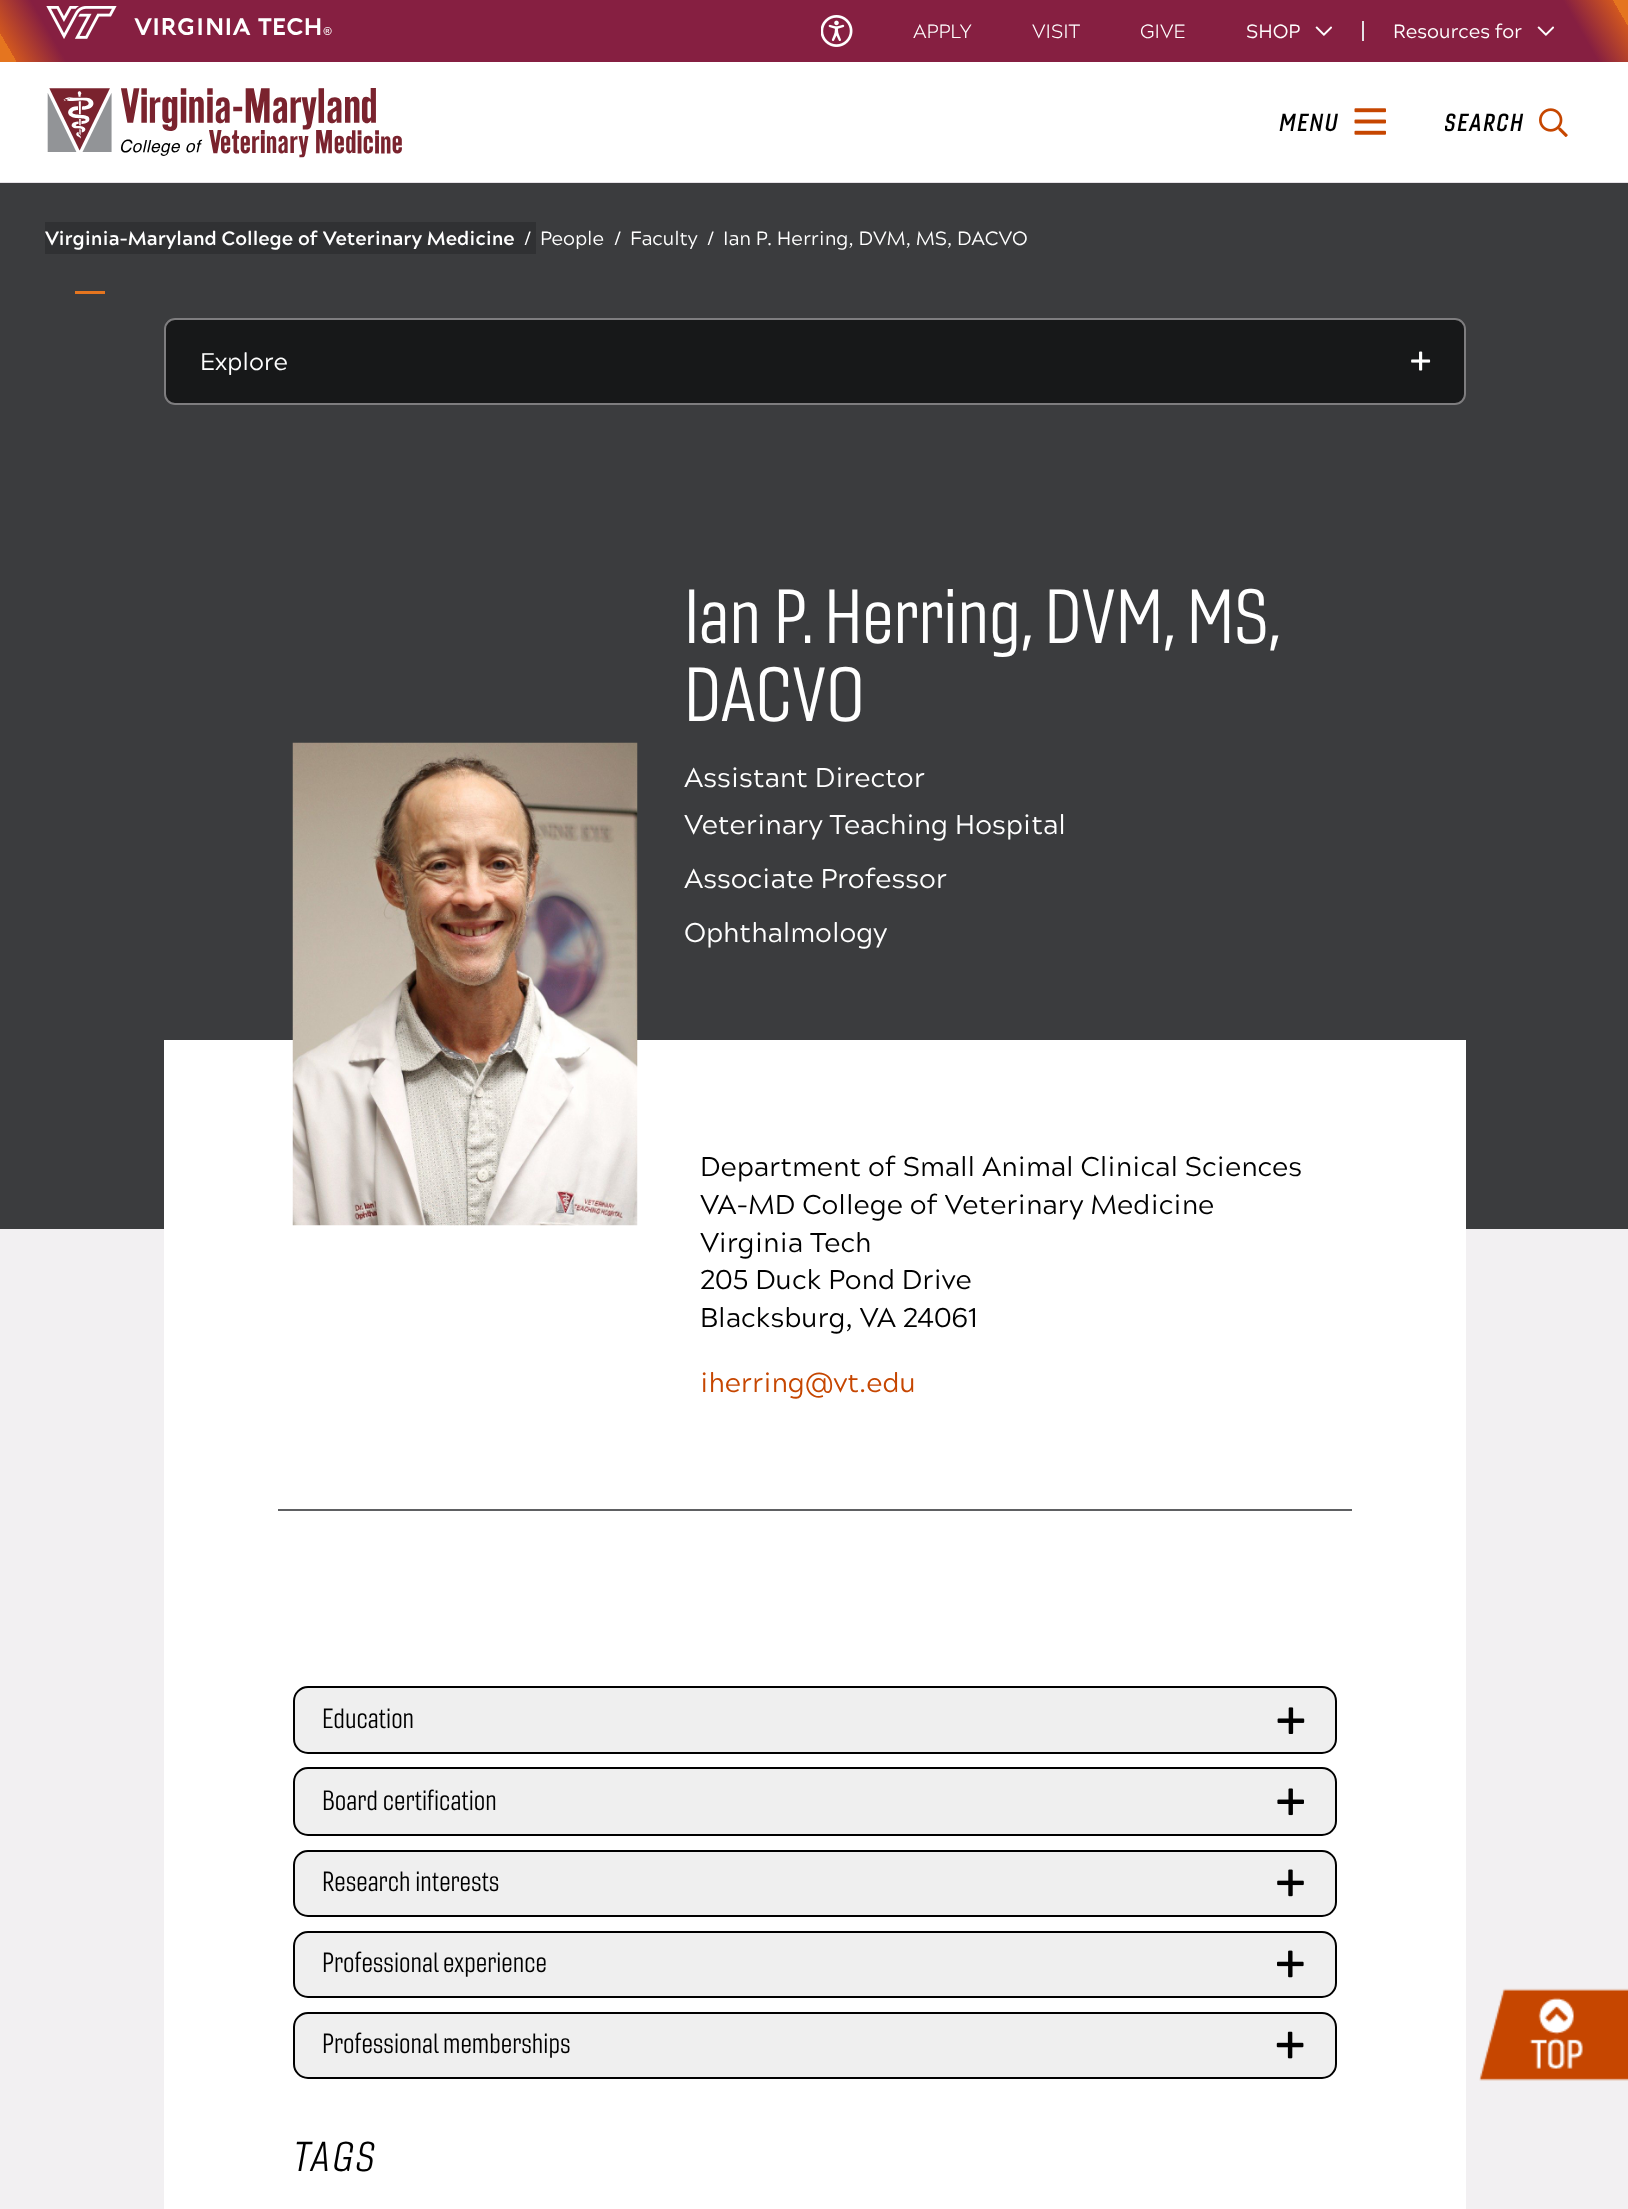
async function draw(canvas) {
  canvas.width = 1628;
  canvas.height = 2209;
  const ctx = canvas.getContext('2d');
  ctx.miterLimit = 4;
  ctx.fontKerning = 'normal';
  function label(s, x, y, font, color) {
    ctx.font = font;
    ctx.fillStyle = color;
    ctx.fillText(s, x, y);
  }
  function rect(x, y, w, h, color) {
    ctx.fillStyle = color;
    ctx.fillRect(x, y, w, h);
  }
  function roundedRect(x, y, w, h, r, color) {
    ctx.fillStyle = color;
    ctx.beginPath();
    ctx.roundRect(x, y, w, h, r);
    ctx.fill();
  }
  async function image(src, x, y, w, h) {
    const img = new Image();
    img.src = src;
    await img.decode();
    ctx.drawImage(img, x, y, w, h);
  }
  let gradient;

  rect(0, 0, 1628, 2209, '#fff');
  rect(0, 182, 1628, 1, '#e5e1e6');
  gradient = ctx.createLinearGradient(190, 391, 1439, -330);
  gradient.addColorStop(0.01, '#e5751f');
  gradient.addColorStop(0.01, '#d1571f');
  gradient.addColorStop(0.04, '#861f41');
  gradient.addColorStop(0.96, '#861f41');
  gradient.addColorStop(0.99, '#d1571f');
  gradient.addColorStop(0.99, '#e5751f');
  ctx.fillStyle = gradient;
  ctx.fillRect(0, 0, 1628, 62);
  await image('assets/img1.png', 46, 6, 71, 33);
  label('VIRGINIA TECH®', 134, 35, '24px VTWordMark', '#fff');
  await image('assets/img2.png', 821, 15, 32, 32);
  label('APPLY', 913, 38, '300 19.2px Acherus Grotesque', '#fff');
  label('VISIT', 1032, 38, '300 19.2px Acherus Grotesque', '#fff');
  label('GIVE', 1140, 38, '300 19.2px Acherus Grotesque', '#fff');
  label('SHOP', 1246, 38, '19.2px Acherus Grotesque', '#fff');
  await image('assets/img3.png', 1315, 26, 17, 10);
  rect(1362, 21, 2, 20, '#e5e1e6');
  label('Resources for', 1393, 38, '19.2px Acherus Grotesque', '#fff');
  await image('assets/img3.png', 1537, 26, 17, 10);
  await image('assets/img4.png', 47, 88, 355, 70);
  ctx.letterSpacing = '1.75px';
  label('MENU', 1279, 131, 'italic bold 24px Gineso', '#000');
  await image('assets/img5.png', 1354, 108, 32, 27);
  ctx.save();
  ctx.beginPath();
  ctx.rect(1445, 110, 79, 24);
  ctx.clip();
  label('SEARCH', 1444, 131, 'italic bold 24px Gineso', '#000');
  ctx.restore();
  await image('assets/img6.png', 1539, 108, 29, 29);
  rect(0, 183, 1628, 1046, '#3b3c3e');
  rect(45, 222, 491, 32, '#303133');
  ctx.letterSpacing = '0px';
  label('Virginia-Maryland College of Veterinary Medicine', 45, 245, 'bold 19.2px Acherus Grotesque', '#fff');
  label('/', 524, 245, '19.2px Acherus Grotesque', '#fff');
  label('People', 540, 245, '19.2px Acherus Grotesque', '#fff');
  label('/', 614, 245, '19.2px Acherus Grotesque', '#fff');
  label('Faculty', 630, 245, '19.2px Acherus Grotesque', '#fff');
  label('/', 707, 245, '19.2px Acherus Grotesque', '#fff');
  label('Ian P. Herring, DVM, MS, DACVO', 723, 245, '19.2px Acherus Grotesque', '#fff');
  rect(75, 291, 30, 3, '#e5751f');
  roundedRect(164, 318, 1302, 87, 11, '#171819');
  ctx.beginPath();
  ctx.roundRect(165, 319, 1300, 85, 10);
  ctx.strokeStyle = '#e5e1e680';
  ctx.lineWidth = 2;
  ctx.stroke();
  label('Explore', 200, 370, '24px Acherus Grotesque', '#fff');
  await image('assets/img7.png', 1411, 351, 20, 20);
  rect(0, 1229, 1628, 980, '#f2f0f2');
  ctx.wordSpacing = '-0.5px';
  label('Ian P. Herring, DVM, MS,', 684, 643, '74.25px Gineso', '#fff');
  ctx.wordSpacing = '0px';
  label('DACVO', 684, 721, '74.25px Gineso', '#fff');
  label('Assistant Director', 684, 787, '27px Acherus Grotesque', '#fff');
  label('Veterinary Teaching Hospital', 684, 834, '27px Acherus Grotesque', '#fff');
  label('Associate Professor', 684, 888, '27px Acherus Grotesque', '#fff');
  label('Ophthalmology', 684, 942, '27px Acherus Grotesque', '#fff');
  rect(164, 1040, 1302, 1169, '#fff');
  await image('assets/img8.png', 292, 742, 346, 484);
  label('Department of Small Animal Clinical Sciences', 700, 1176, '27px Acherus Grotesque', '#000');
  label('VA-MD College of Veterinary Medicine', 700, 1214, '27px Acherus Grotesque', '#000');
  label('Virginia Tech', 700, 1252, '27px Acherus Grotesque', '#000');
  label('205 Duck Pond Drive', 700, 1289, '27px Acherus Grotesque', '#000');
  label('Blacksburg, VA 24061', 700, 1327, '27px Acherus Grotesque', '#000');
  label('iherring@vt.edu', 700, 1392, '27px Acherus Grotesque', '#c64600');
  rect(278, 1509, 1074, 2, '#5e6062');
  ctx.fillStyle = '#efefef';
  ctx.beginPath();
  ctx.roundRect(294, 1687, 1042, 66, 14);
  ctx.fill();
  ctx.strokeStyle = '#000';
  ctx.stroke();
  label('Education', 322, 1728, '27px Gineso', '#000');
  await image('assets/img9.png', 1277, 1707, 28, 27);
  ctx.fillStyle = '#efefef';
  ctx.beginPath();
  ctx.roundRect(294, 1768, 1042, 67, 14);
  ctx.fill();
  ctx.stroke();
  label('Board certification', 322, 1810, '27px Gineso', '#000');
  await image('assets/img10.png', 1277, 1788, 27, 28);
  ctx.fillStyle = '#efefef';
  ctx.beginPath();
  ctx.roundRect(294, 1851, 1042, 65, 14);
  ctx.fill();
  ctx.stroke();
  label('Research interests', 322, 1891, '27px Gineso', '#000');
  await image('assets/img11.png', 1277, 1869, 27, 28);
  ctx.fillStyle = '#efefef';
  ctx.beginPath();
  ctx.roundRect(294, 1932, 1042, 65, 14);
  ctx.fill();
  ctx.stroke();
  label('Professional experience', 322, 1972, '27px Gineso', '#000');
  await image('assets/img12.png', 1277, 1950, 27, 28);
  ctx.fillStyle = '#efefef';
  ctx.beginPath();
  ctx.roundRect(294, 2013, 1042, 65, 14);
  ctx.fill();
  ctx.stroke();
  label('Professional memberships', 322, 2053, '27px Gineso', '#000');
  await image('assets/img13.png', 1276, 2031, 28, 28);
  await image('assets/img14.png', 1479, 1988, 149, 93);
  ctx.letterSpacing = '3px';
  label('TAGS', 293, 2171, 'italic 40.5px Gineso', '#000');
}

draw(document.querySelector('canvas'));
